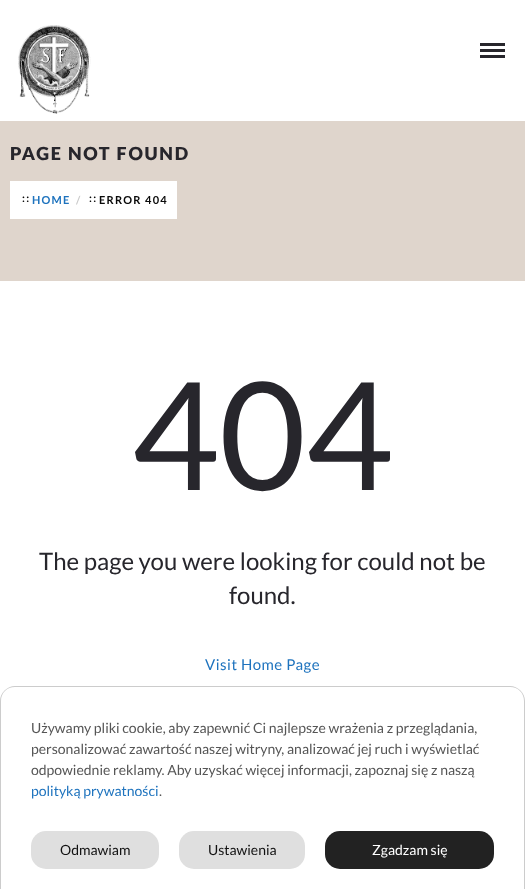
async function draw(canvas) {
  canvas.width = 525;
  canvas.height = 889;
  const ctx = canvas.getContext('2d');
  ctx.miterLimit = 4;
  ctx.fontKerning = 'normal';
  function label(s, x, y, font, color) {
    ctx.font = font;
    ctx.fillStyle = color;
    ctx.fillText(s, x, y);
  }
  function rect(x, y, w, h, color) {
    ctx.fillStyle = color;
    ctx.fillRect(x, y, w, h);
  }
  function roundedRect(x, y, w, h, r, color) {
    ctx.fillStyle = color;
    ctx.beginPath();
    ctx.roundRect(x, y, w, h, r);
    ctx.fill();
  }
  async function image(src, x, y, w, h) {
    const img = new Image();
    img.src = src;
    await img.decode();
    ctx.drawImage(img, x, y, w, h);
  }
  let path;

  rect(0, 0, 525, 889, '#fff');
  await image('assets/img1.png', 18, 25, 73, 89);
  rect(480, 49, 25, 3, '#27262c');
  rect(480, 43, 25, 3, '#27262c');
  rect(480, 55, 25, 3, '#27262c');
  rect(0, 121, 525, 160, '#dfd5cc');
  ctx.letterSpacing = '1.75px';
  label('PAGE NOT FOUND', 10, 160, '900 18px Lato', '#27262c');
  rect(10, 181, 167, 38, '#fff');
  ctx.letterSpacing = '1.25px';
  label('::', 22, 202, 'bold 11px Lato', '#0a0a0a');
  label('HOME', 32, 204, 'bold 11px Lato', '#1e73be');
  label('/', 76, 204, 'bold 11px Lato', '#cacaca');
  label('::', 89, 202, 'bold 11px Lato', '#0a0a0a');
  label('ERROR 404', 99, 204, 'bold 11px Lato', '#0a0a0a');
  ctx.letterSpacing = '0px';
  label('404', 132, 490, '150px Lato', '#27262c');
  label('The page you were looking for could not be', 39, 570, '24px Lato', '#27262c');
  label('found.', 229, 604, '24px Lato', '#27262c');
  ctx.letterSpacing = '0.5px';
  label('Visit Home Page', 205, 670, '15px Lato', '#1e73be');
  ctx.fillStyle = '#ccc';
  path = new Path2D('M15 686H510C518 686 525 693 525 701V889H0V701C0 693 7 686 15 686ZM15 687H510C518 687 524 693 524 701V889H1V701C1 693 7 687 15 687Z');
  ctx.fill(path, 'evenodd');
  ctx.letterSpacing = '0px';
  label('Używamy pliki cookie, aby zapewnić Ci najlepsze wrażenia z przeglądania,', 31, 733, '14px Lato', '#555');
  label('personalizować zawartość naszej witryny, analizować jej ruch i wyświetlać', 31, 754, '14px Lato', '#555');
  label('odpowiednie reklamy. Aby uzyskać więcej informacji, zapoznaj się z naszą', 31, 775, '14px Lato', '#555');
  label('polityką prywatności', 31, 796, '14px Lato', '#1e73be');
  label('.', 159, 796, '14px Lato', '#555');
  roundedRect(31, 831, 128, 38, 15, '#dfdfdf');
  label('Odmawiam', 60, 855, '14px Lato', '#111');
  roundedRect(179, 831, 126, 38, 15, '#dfdfdf');
  label('Ustawienia', 208, 855, '14px Lato', '#111');
  roundedRect(325, 831, 169, 38, 15, '#222');
  label('Zgadzam się', 372, 855, '14px Lato', '#fff');
}

draw(document.querySelector('canvas'));
